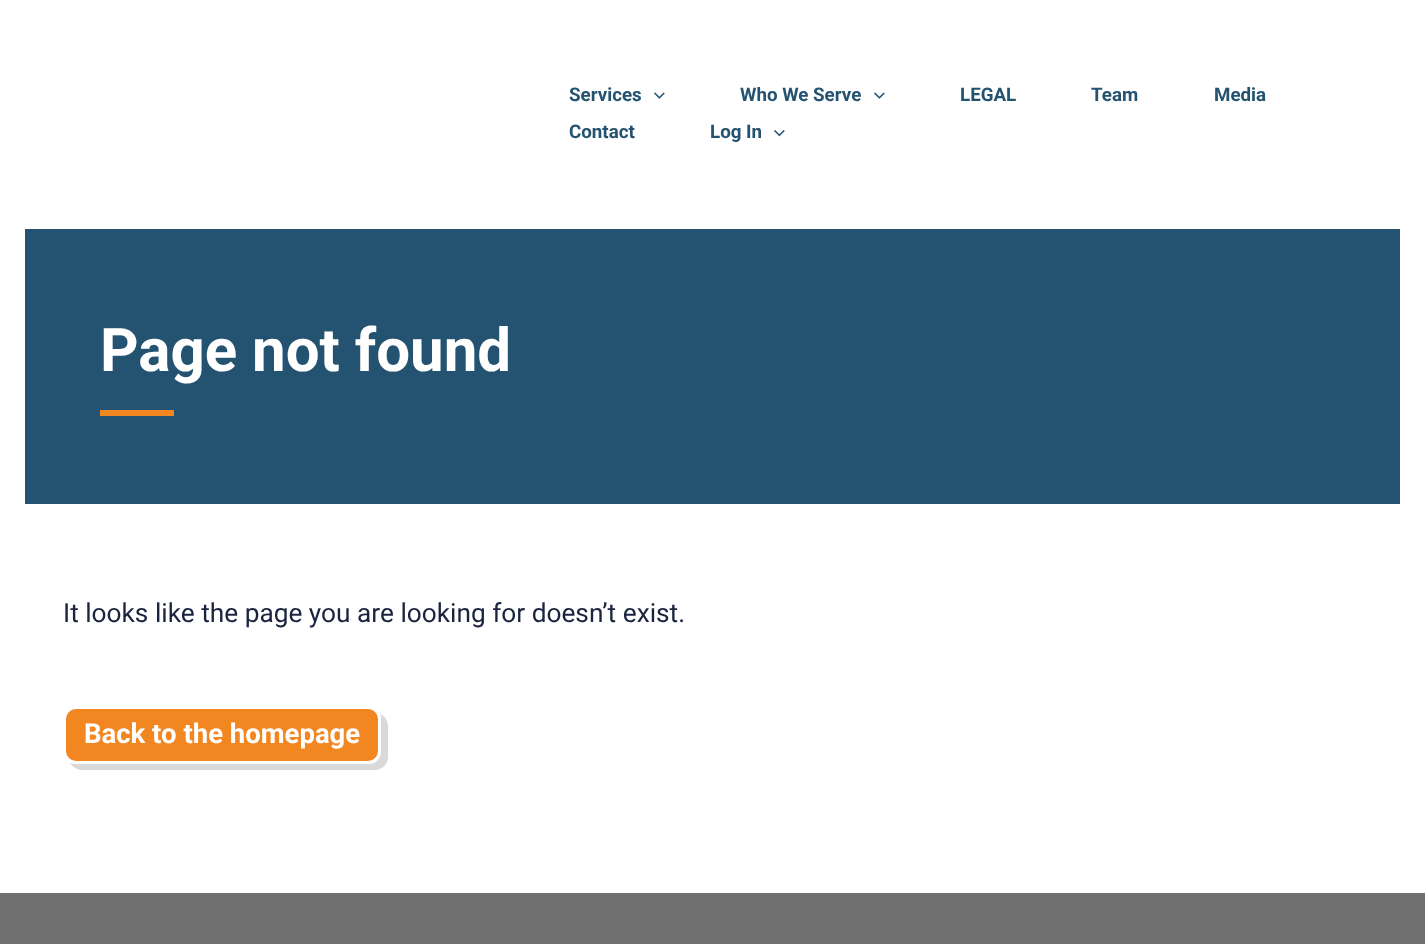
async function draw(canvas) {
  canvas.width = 1425;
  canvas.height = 944;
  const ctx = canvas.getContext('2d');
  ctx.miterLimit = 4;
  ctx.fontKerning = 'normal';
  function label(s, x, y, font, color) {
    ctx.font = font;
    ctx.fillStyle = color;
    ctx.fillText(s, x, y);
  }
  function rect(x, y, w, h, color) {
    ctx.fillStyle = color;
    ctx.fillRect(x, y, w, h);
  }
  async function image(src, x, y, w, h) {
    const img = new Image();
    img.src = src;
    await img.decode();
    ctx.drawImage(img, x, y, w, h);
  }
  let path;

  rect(0, 0, 1425, 944, '#fff');
  label('Services', 569, 101, 'bold 18.75px Roboto', '#245371');
  await image('assets/img1.png', 654, 92, 11, 7);
  label('Who We Serve', 740, 101, 'bold 18.75px Roboto', '#245371');
  await image('assets/img1.png', 874, 92, 11, 7);
  label('LEGAL', 960, 101, 'bold 18.75px Roboto', '#245371');
  label('Team', 1091, 101, 'bold 18.75px Roboto', '#245371');
  label('Media', 1214, 101, 'bold 18.75px Roboto', '#245371');
  label('Contact', 569, 138, 'bold 18.75px Roboto', '#245371');
  label('Log In', 710, 138, 'bold 18.75px Roboto', '#245371');
  await image('assets/img2.png', 774, 130, 11, 7);
  rect(25, 229, 1375, 275, '#245371');
  label('Page not found', 100, 371, 'bold 60px Roboto', '#fff');
  rect(100, 410, 74, 6, '#f28621');
  label('It looks like the page you are looking for doesn’t exist.', 63, 622, '26.25px Roboto', '#1a243f');
  ctx.fillStyle = '#d9d9d9';
  path = new Path2D('M70 763C73 767 77 770 82 770H375C382 770 388 764 388 757V726C388 721 385 716 380 714L381 719V751C381 758 376 764 369 764H75Z');
  ctx.fill(path);
  ctx.fillStyle = '#f28621';
  ctx.beginPath();
  ctx.roundRect(64.5, 707.5, 315, 55, 11.5);
  ctx.fill();
  ctx.strokeStyle = '#fff';
  ctx.lineWidth = 3;
  ctx.stroke();
  label('Back to the homepage', 84, 743, 'bold 27.5px Roboto', '#fff');
  rect(0, 893, 1425, 51, '#707071');
}

draw(document.querySelector('canvas'));
